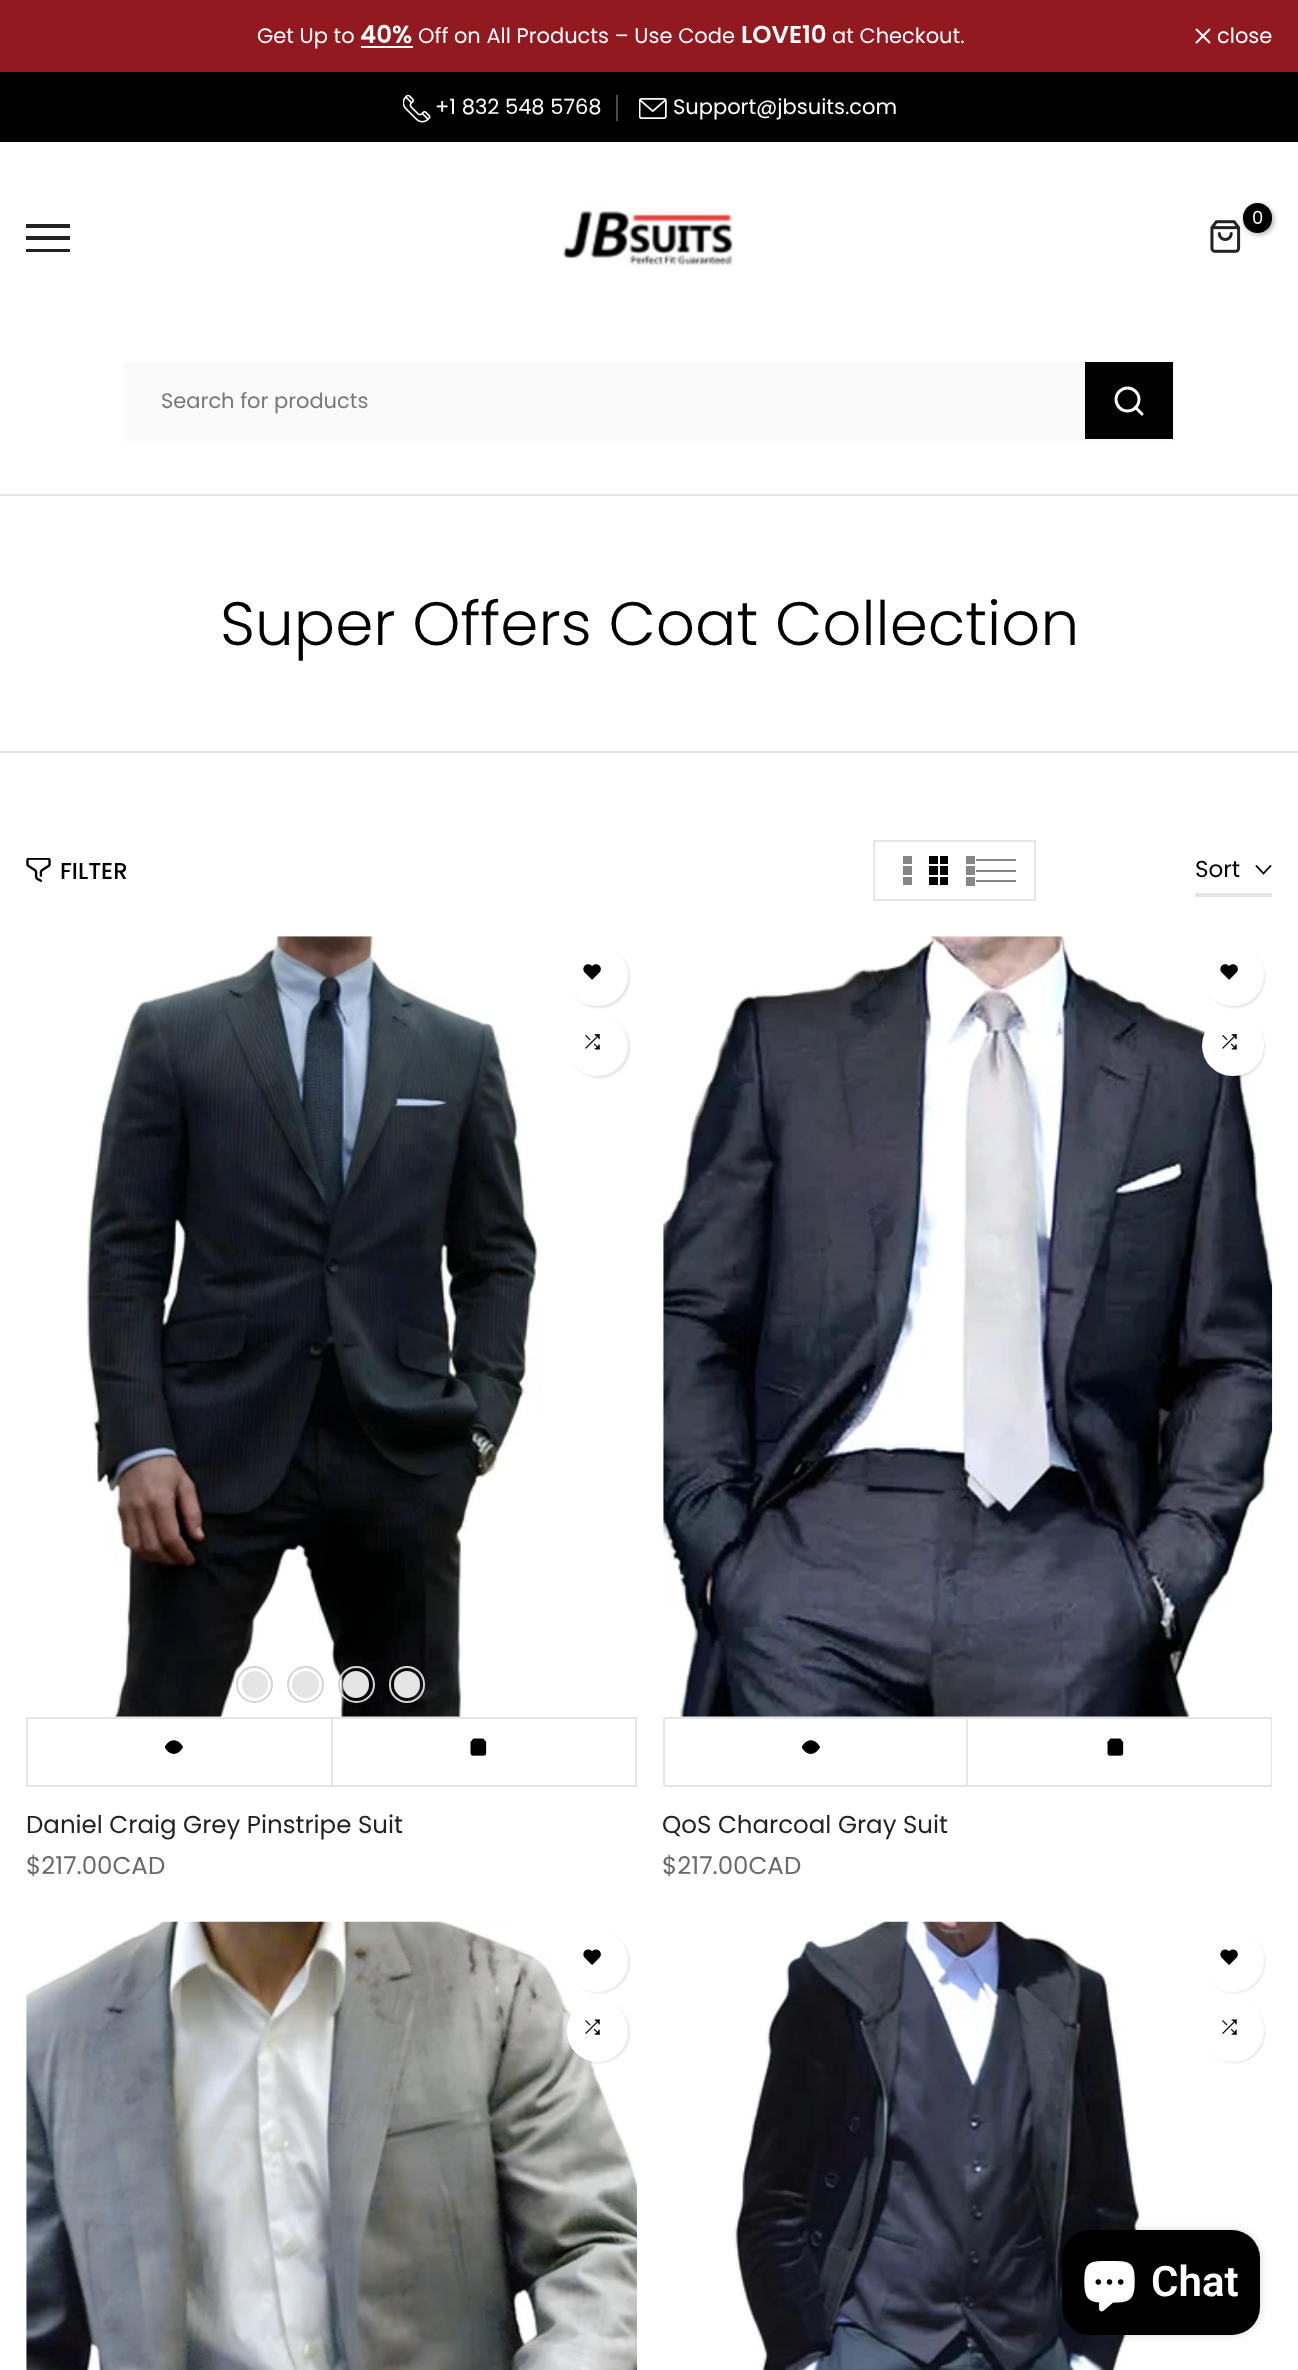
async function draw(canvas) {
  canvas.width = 1298;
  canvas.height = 2370;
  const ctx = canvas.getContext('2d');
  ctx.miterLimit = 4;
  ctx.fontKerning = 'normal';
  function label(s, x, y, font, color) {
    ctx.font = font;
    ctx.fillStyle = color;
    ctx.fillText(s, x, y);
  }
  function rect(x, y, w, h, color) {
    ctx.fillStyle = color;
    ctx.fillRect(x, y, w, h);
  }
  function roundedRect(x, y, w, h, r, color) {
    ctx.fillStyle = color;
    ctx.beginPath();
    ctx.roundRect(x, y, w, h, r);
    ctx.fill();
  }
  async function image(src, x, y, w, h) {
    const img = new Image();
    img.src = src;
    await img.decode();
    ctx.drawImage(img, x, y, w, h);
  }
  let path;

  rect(0, 0, 1298, 2370, '#fff');
  rect(0, 0, 1298, 72, '#931920');
  label('Get Up to', 257, 43, '21px Poppins', '#fff');
  label('40%', 360, 43, '600 24.5px Poppins', '#fff');
  rect(361, 46, 52, 2, '#fff');
  label('Off on All Products – Use Code', 418, 43, '21px Poppins', '#fff');
  label('LOVE10', 741, 43, '600 24.5px Poppins', '#fff');
  label('at Checkout.', 832, 43, '21px Poppins', '#fff');
  path = new Path2D('M1210 29L1196 43M1210 43L1196 29');
  ctx.strokeStyle = '#fff';
  ctx.lineWidth = 2;
  ctx.stroke(path);
  label('close', 1217, 43, '21px Poppins', '#fff');
  rect(0, 72, 1298, 70, '#000');
  await image('assets/img1.png', 403, 95, 28, 28);
  label('+1 832 548 5768', 435, 114, '21px Poppins', '#fff');
  rect(616, 95, 2, 26, '#4d4d4d');
  await image('assets/img2.png', 639, 98, 28, 21);
  label('Support@jbsuits.com', 673, 114, '21px Poppins', '#fff');
  await image('assets/img3.png', 562, 207, 171, 62);
  await image('assets/img4.png', 1210, 220, 31, 33);
  ctx.fillStyle = '#0000004d';
  ctx.filter = 'blur(2.5px)';
  ctx.beginPath();
  ctx.roundRect(1244, 205, 30, 30, 15);
  ctx.fill();
  ctx.filter = 'none';
  roundedRect(1243, 203, 29, 30, 14.5, '#000');
  label('0', 1252, 224, '18px Poppins', '#fff');
  rect(26, 224, 44, 4, '#222');
  rect(26, 236, 44, 4, '#222');
  rect(26, 249, 44, 3, '#222');
  rect(124, 361, 1050, 80, '#fafafa');
  label('Search for products', 161, 408, '21px Poppins', '#787878');
  rect(1085, 362, 88, 77, '#000');
  ctx.beginPath();
  ctx.arc(1127.5, 399.5, 11.5, 0, 2 * Math.PI);
  ctx.lineWidth = 2.9;
  ctx.stroke();
  path = new Path2D('M1142 414L1135.5 407.5');
  ctx.lineCap = 'round';
  ctx.lineJoin = 'round';
  ctx.stroke(path);
  rect(0, 494, 1298, 2, '#e6e6e6');
  rect(0, 751, 1298, 2, '#e6e6e6');
  label('Super Offers Coat Collection', 220, 645, '300 61.25px Poppins', '#000');
  await image('assets/img5.png', 26, 858, 25, 24);
  label('FILTER', 60, 879, '500 23px Poppins', '#000');
  ctx.strokeStyle = '#e6e6e6';
  ctx.lineWidth = 2;
  ctx.lineJoin = 'miter';
  ctx.strokeRect(874, 841, 161, 59);
  rect(903, 856, 9, 8, '#868686');
  rect(903, 866, 9, 9, '#868686');
  rect(903, 877, 9, 8, '#868686');
  rect(929, 856, 9, 8, '#000');
  rect(929, 866, 9, 9, '#000');
  rect(929, 877, 9, 8, '#000');
  rect(940, 856, 8, 8, '#000');
  rect(940, 866, 8, 9, '#000');
  rect(940, 877, 8, 8, '#000');
  rect(966, 856, 9, 8, '#868686');
  rect(966, 866, 9, 9, '#868686');
  rect(966, 877, 9, 9, '#868686');
  rect(976, 859, 40, 2, '#868686');
  rect(976, 870, 40, 2, '#868686');
  rect(976, 880, 40, 2, '#868686');
  rect(1195, 893, 77, 4, '#e6e6e6');
  label('Sort', 1195, 877, '23px Poppins', '#000');
  path = new Path2D('M1270.5 866L1263.5 873.5L1256.5 866');
  ctx.strokeStyle = '#000';
  ctx.lineWidth = 1.8;
  ctx.lineCap = 'square';
  ctx.stroke(path);
  await image('assets/img6.png', 87, 936, 455, 781);
  ctx.fillStyle = '#0000001a';
  ctx.filter = 'blur(1px)';
  ctx.beginPath();
  ctx.roundRect(569, 947, 61, 61, 30.5);
  ctx.fill();
  ctx.filter = 'none';
  ctx.fillStyle = '#fff';
  ctx.beginPath();
  ctx.arc(597.5, 975.5, 30.5, 0, 2 * Math.PI);
  ctx.fill();
  await image('assets/img7.png', 583, 964, 18, 16);
  ctx.fillStyle = '#0000001a';
  ctx.filter = 'blur(1px)';
  ctx.beginPath();
  ctx.roundRect(569, 1017, 61, 61, 30.5);
  ctx.fill();
  ctx.filter = 'none';
  ctx.fillStyle = '#fff';
  ctx.beginPath();
  ctx.arc(597.5, 1045.5, 30.5, 0, 2 * Math.PI);
  ctx.fill();
  await image('assets/img8.png', 585, 1034, 15, 16);
  ctx.beginPath();
  ctx.arc(254.5, 1684.5, 17.5, 0, 2 * Math.PI);
  ctx.strokeStyle = '#d4d4d4';
  ctx.lineWidth = 2;
  ctx.stroke();
  roundedRect(242, 1671, 26, 27, 13, '#e5e5e5');
  ctx.beginPath();
  ctx.arc(305.5, 1684.5, 17.5, 0, 2 * Math.PI);
  ctx.stroke();
  ctx.beginPath();
  ctx.arc(305.5, 1684.5, 13.5, 0, 2 * Math.PI);
  ctx.fill();
  ctx.beginPath();
  ctx.arc(356.5, 1684.5, 17.5, 0, 2 * Math.PI);
  ctx.stroke();
  roundedRect(343, 1671, 26, 27, 13, '#e5e5e5');
  ctx.beginPath();
  ctx.roundRect(390, 1667, 34, 35, 17);
  ctx.stroke();
  roundedRect(394, 1671, 26, 27, 13, '#e5e5e5');
  rect(26, 1717, 611, 2, '#e6e6e6');
  rect(26, 1785, 611, 2, '#e6e6e6');
  rect(26, 1717, 2, 70, '#e6e6e6');
  rect(331, 1719, 2, 66, '#e6e6e6');
  await image('assets/img9.png', 165, 1740, 18, 14);
  rect(635, 1719, 2, 66, '#e6e6e6');
  await image('assets/img10.png', 470, 1738, 17, 18);
  label('Daniel Craig Grey Pinstripe Suit', 26, 1833, '24.5px Poppins', '#222');
  label('$217.00CAD', 26, 1874, '24.5px Poppins', '#696969');
  await image('assets/img11.png', 663, 936, 610, 781);
  ctx.fillStyle = '#0000001a';
  ctx.filter = 'blur(1px)';
  ctx.beginPath();
  ctx.roundRect(1204, 947, 61, 61, 30.5);
  ctx.fill();
  ctx.filter = 'none';
  roundedRect(1202, 945, 62, 61, 30.5, '#fff');
  await image('assets/img7.png', 1220, 964, 18, 16);
  ctx.fillStyle = '#0000001a';
  ctx.filter = 'blur(1px)';
  ctx.beginPath();
  ctx.roundRect(1204, 1017, 61, 61, 30.5);
  ctx.fill();
  ctx.filter = 'none';
  roundedRect(1202, 1015, 62, 61, 30.5, '#fff');
  await image('assets/img8.png', 1222, 1034, 15, 16);
  rect(663, 1717, 609, 2, '#e6e6e6');
  rect(663, 1785, 609, 2, '#e6e6e6');
  rect(663, 1717, 2, 70, '#e6e6e6');
  rect(966, 1719, 2, 66, '#e6e6e6');
  await image('assets/img9.png', 802, 1740, 18, 14);
  rect(1271, 1719, 1, 66, '#e6e6e6');
  await image('assets/img10.png', 1107, 1738, 17, 18);
  label('QoS Charcoal Gray Suit', 662, 1833, '24.5px Poppins', '#222');
  label('$217.00CAD', 662, 1874, '24.5px Poppins', '#696969');
  await image('assets/img12.png', 26, 1921, 611, 449);
  ctx.fillStyle = '#0000001a';
  ctx.filter = 'blur(1px)';
  ctx.beginPath();
  ctx.roundRect(569, 1932, 61, 61, 30.5);
  ctx.fill();
  ctx.filter = 'none';
  roundedRect(567, 1930, 61, 62, 30.5, '#fff');
  await image('assets/img13.png', 583, 1949, 18, 16);
  ctx.fillStyle = '#0000001a';
  ctx.filter = 'blur(1px)';
  ctx.beginPath();
  ctx.roundRect(569, 2002, 61, 61, 30.5);
  ctx.fill();
  ctx.filter = 'none';
  roundedRect(567, 2000, 61, 62, 30.5, '#fff');
  await image('assets/img14.png', 585, 2019, 15, 16);
  await image('assets/img15.png', 733, 1921, 410, 449);
  ctx.fillStyle = '#0000001a';
  ctx.filter = 'blur(1px)';
  ctx.beginPath();
  ctx.roundRect(1204, 1932, 61, 61, 30.5);
  ctx.fill();
  ctx.filter = 'none';
  ctx.fillStyle = '#fff';
  ctx.beginPath();
  ctx.arc(1233, 1961, 31, 0, 2 * Math.PI);
  ctx.fill();
  await image('assets/img13.png', 1220, 1949, 18, 16);
  ctx.fillStyle = '#0000001a';
  ctx.filter = 'blur(1px)';
  ctx.beginPath();
  ctx.roundRect(1204, 2002, 61, 61, 30.5);
  ctx.fill();
  ctx.filter = 'none';
  ctx.fillStyle = '#fff';
  ctx.beginPath();
  ctx.arc(1233, 2031, 31, 0, 2 * Math.PI);
  ctx.fill();
  await image('assets/img14.png', 1222, 2019, 15, 16);
  ctx.fillStyle = '#00000026';
  ctx.filter = 'blur(4.5px)';
  ctx.beginPath();
  ctx.roundRect(1062, 2230, 198, 105, 28);
  ctx.fill();
  ctx.filter = 'none';
  roundedRect(1062, 2230, 198, 105, 28, '#000');
  await image('assets/img16.png', 1084, 2261, 51, 51);
  label('Chat', 1151, 2296, '600 42px Roboto', '#fff');
}

draw(document.querySelector('canvas'));
